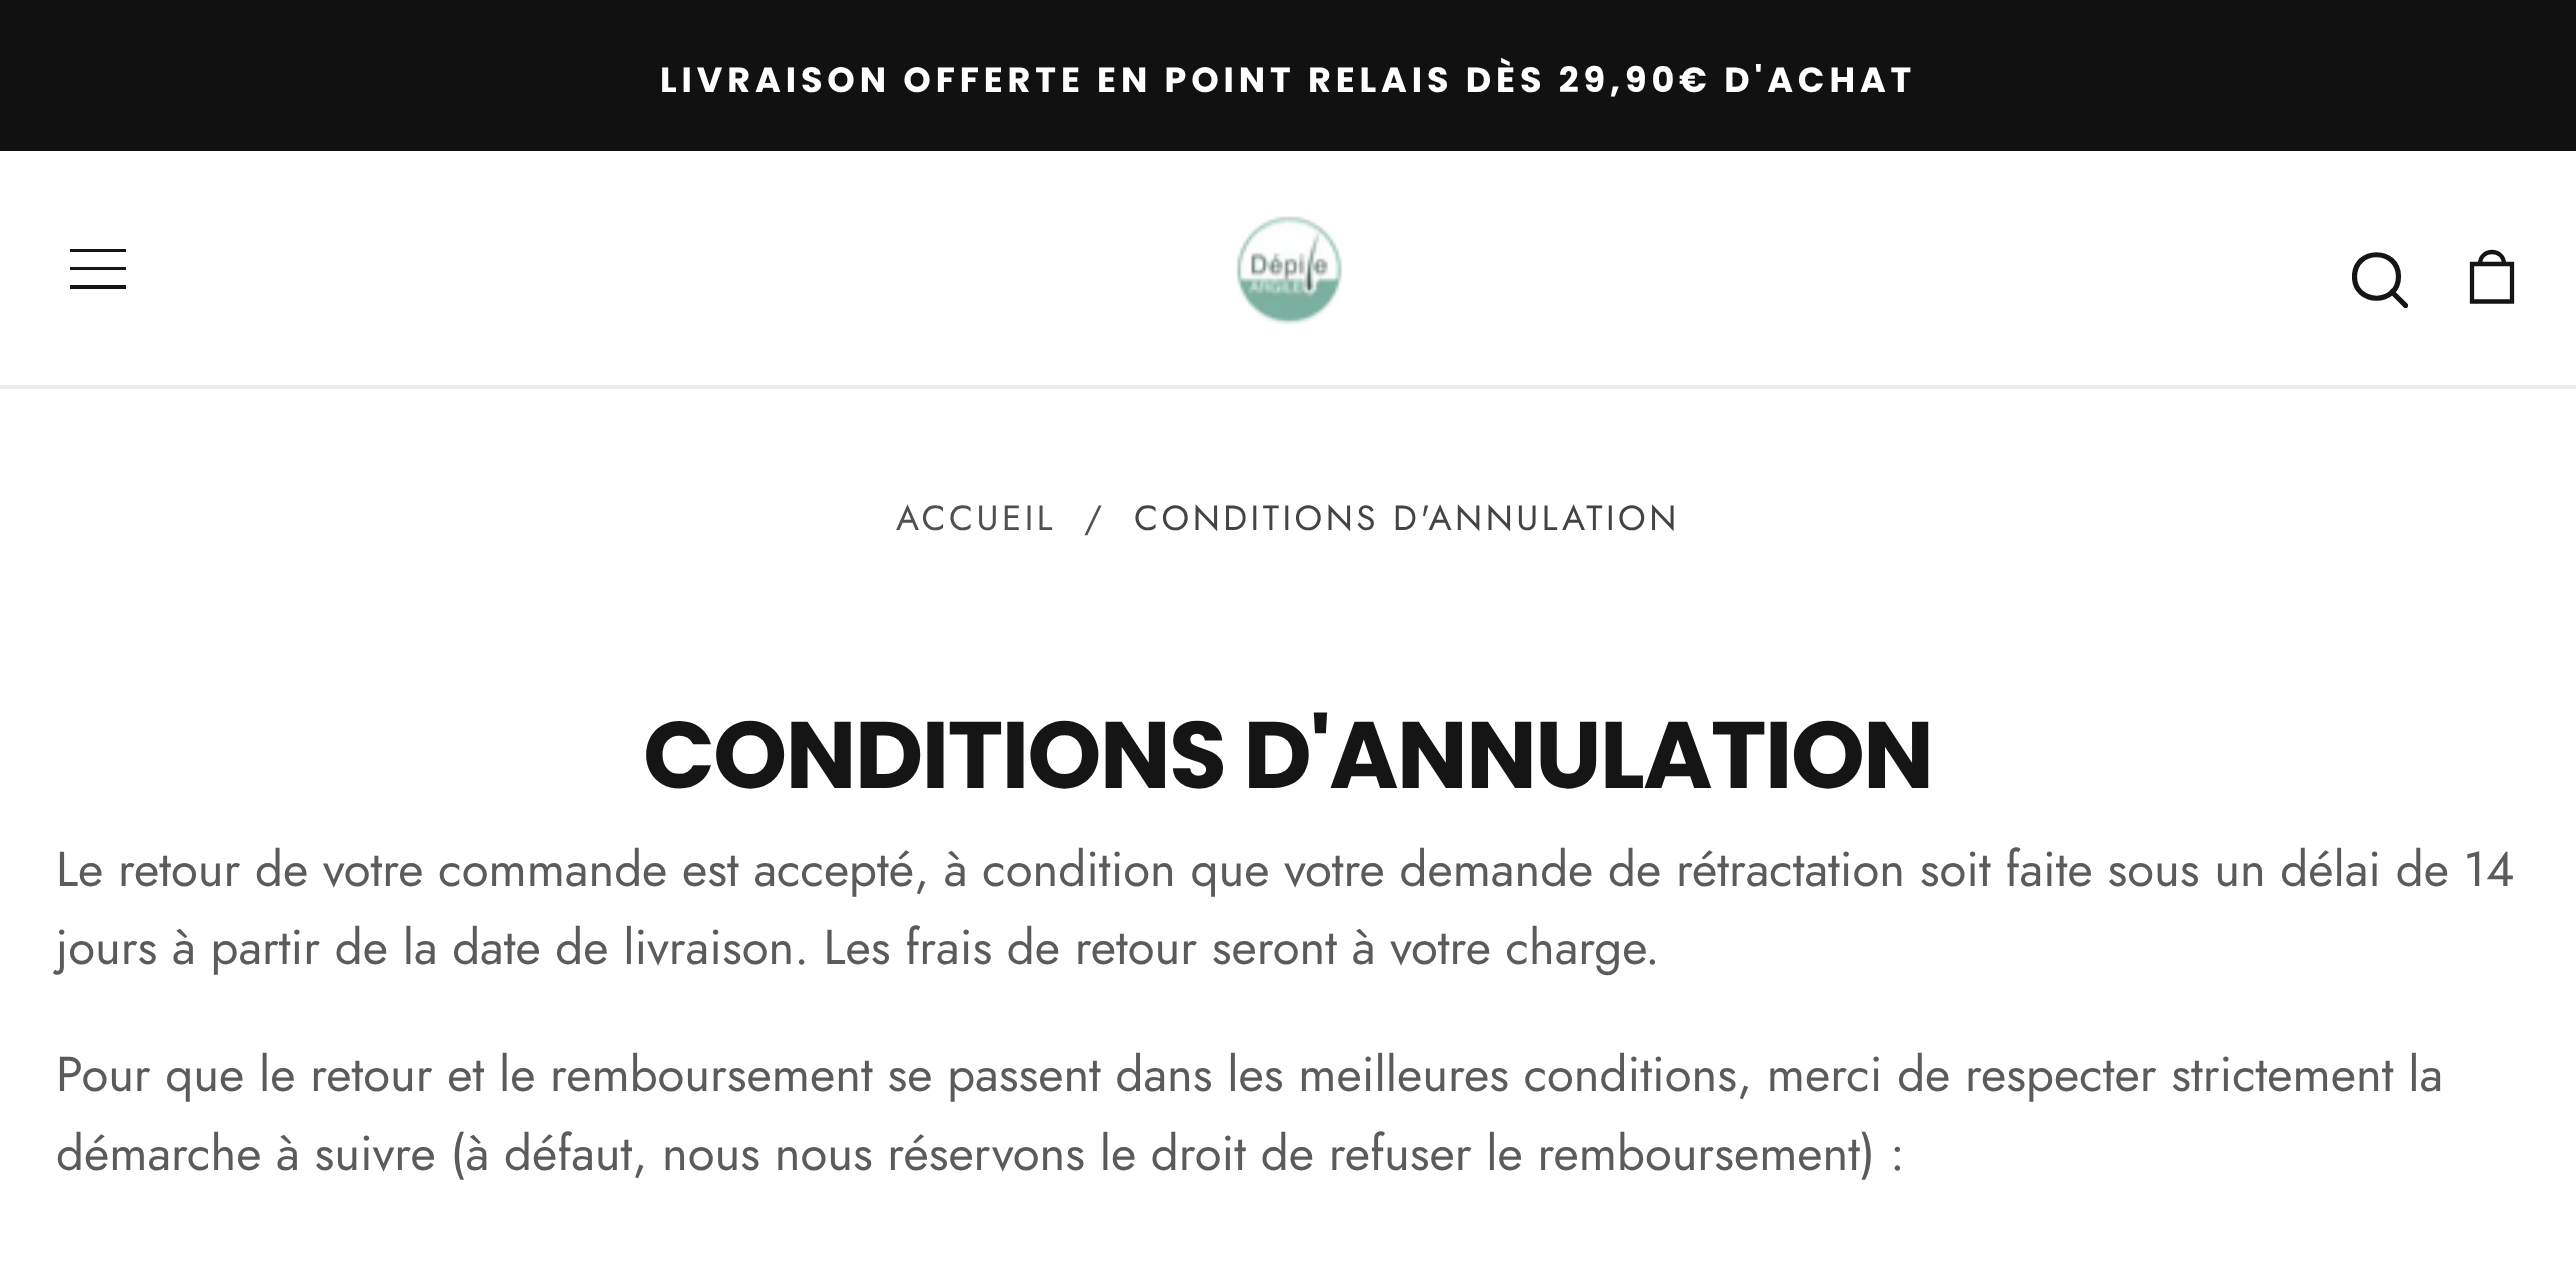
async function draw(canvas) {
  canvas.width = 2576;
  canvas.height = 1275;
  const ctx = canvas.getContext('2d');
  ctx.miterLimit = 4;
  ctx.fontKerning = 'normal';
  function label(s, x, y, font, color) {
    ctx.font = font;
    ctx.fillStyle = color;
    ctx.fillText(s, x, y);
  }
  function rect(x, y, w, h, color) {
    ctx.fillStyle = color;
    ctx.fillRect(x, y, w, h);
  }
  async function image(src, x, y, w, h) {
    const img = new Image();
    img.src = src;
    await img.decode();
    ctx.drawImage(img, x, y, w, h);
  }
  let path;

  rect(0, 0, 2576, 1275, '#fff');
  rect(0, 0, 2576, 151, '#111');
  ctx.letterSpacing = '4.9px';
  label('LIVRAISON OFFERTE EN POINT RELAIS DÈS 29,90€ D\'ACHAT', 660, 92, 'bold 35px Poppins', '#fff');
  rect(70, 249, 56, 3, '#151515');
  rect(70, 267, 56, 3, '#151515');
  rect(70, 285, 56, 4, '#151515');
  await image('assets/img1.png', 1236, 216, 107, 109);
  ctx.save();
  ctx.beginPath();
  ctx.rect(2352, 252, 56, 56);
  ctx.clip();
  path = new Path2D('M2405.5 305.5L2392 292M2354.5 276.5C2354.5 247.5 2398.5 247.5 2398.5 276.5C2398.5 305.5 2354.5 305.5 2354.5 276.5Z');
  ctx.strokeStyle = '#151515';
  ctx.lineWidth = 5.2;
  ctx.lineCap = 'square';
  ctx.lineJoin = 'round';
  ctx.stroke(path);
  ctx.restore();
  path = new Path2D('M2472 264H2512V301.5H2472ZM2504 264C2504 248 2480 248 2480 264');
  ctx.strokeStyle = '#151515';
  ctx.lineWidth = 4.3;
  ctx.stroke(path);
  rect(0, 385, 2576, 4, '#ebebeb');
  ctx.letterSpacing = '3.5px';
  label('ACCUEIL', 896, 530, '35px Jost', '#505050');
  label('/', 1084, 530, '35px Jost', '#505050');
  label('CONDITIONS D\'ANNULATION', 1134, 530, '35px Jost', '#444');
  ctx.letterSpacing = '-1.9px';
  label('CONDITIONS D\'ANNULATION', 643, 788, 'bold 94.5px Poppins', '#151515');
  ctx.letterSpacing = '0px';
  label('Le retour de votre commande est accepté, à condition que votre demande de rétractation soit faite sous un délai de 14', 56, 886, '49px Jost', '#5b5b5b');
  label('jours à partir de la date de livraison. Les frais de retour seront à votre charge.', 56, 964, '49px Jost', '#5b5b5b');
  label('Pour que le retour et le remboursement se passent dans les meilleures conditions, merci de respecter strictement la', 56, 1091, '49px Jost', '#5b5b5b');
  label('démarche à suivre (à défaut, nous nous réservons le droit de refuser le remboursement) :', 56, 1170, '49px Jost', '#5b5b5b');
}

draw(document.querySelector('canvas'));
